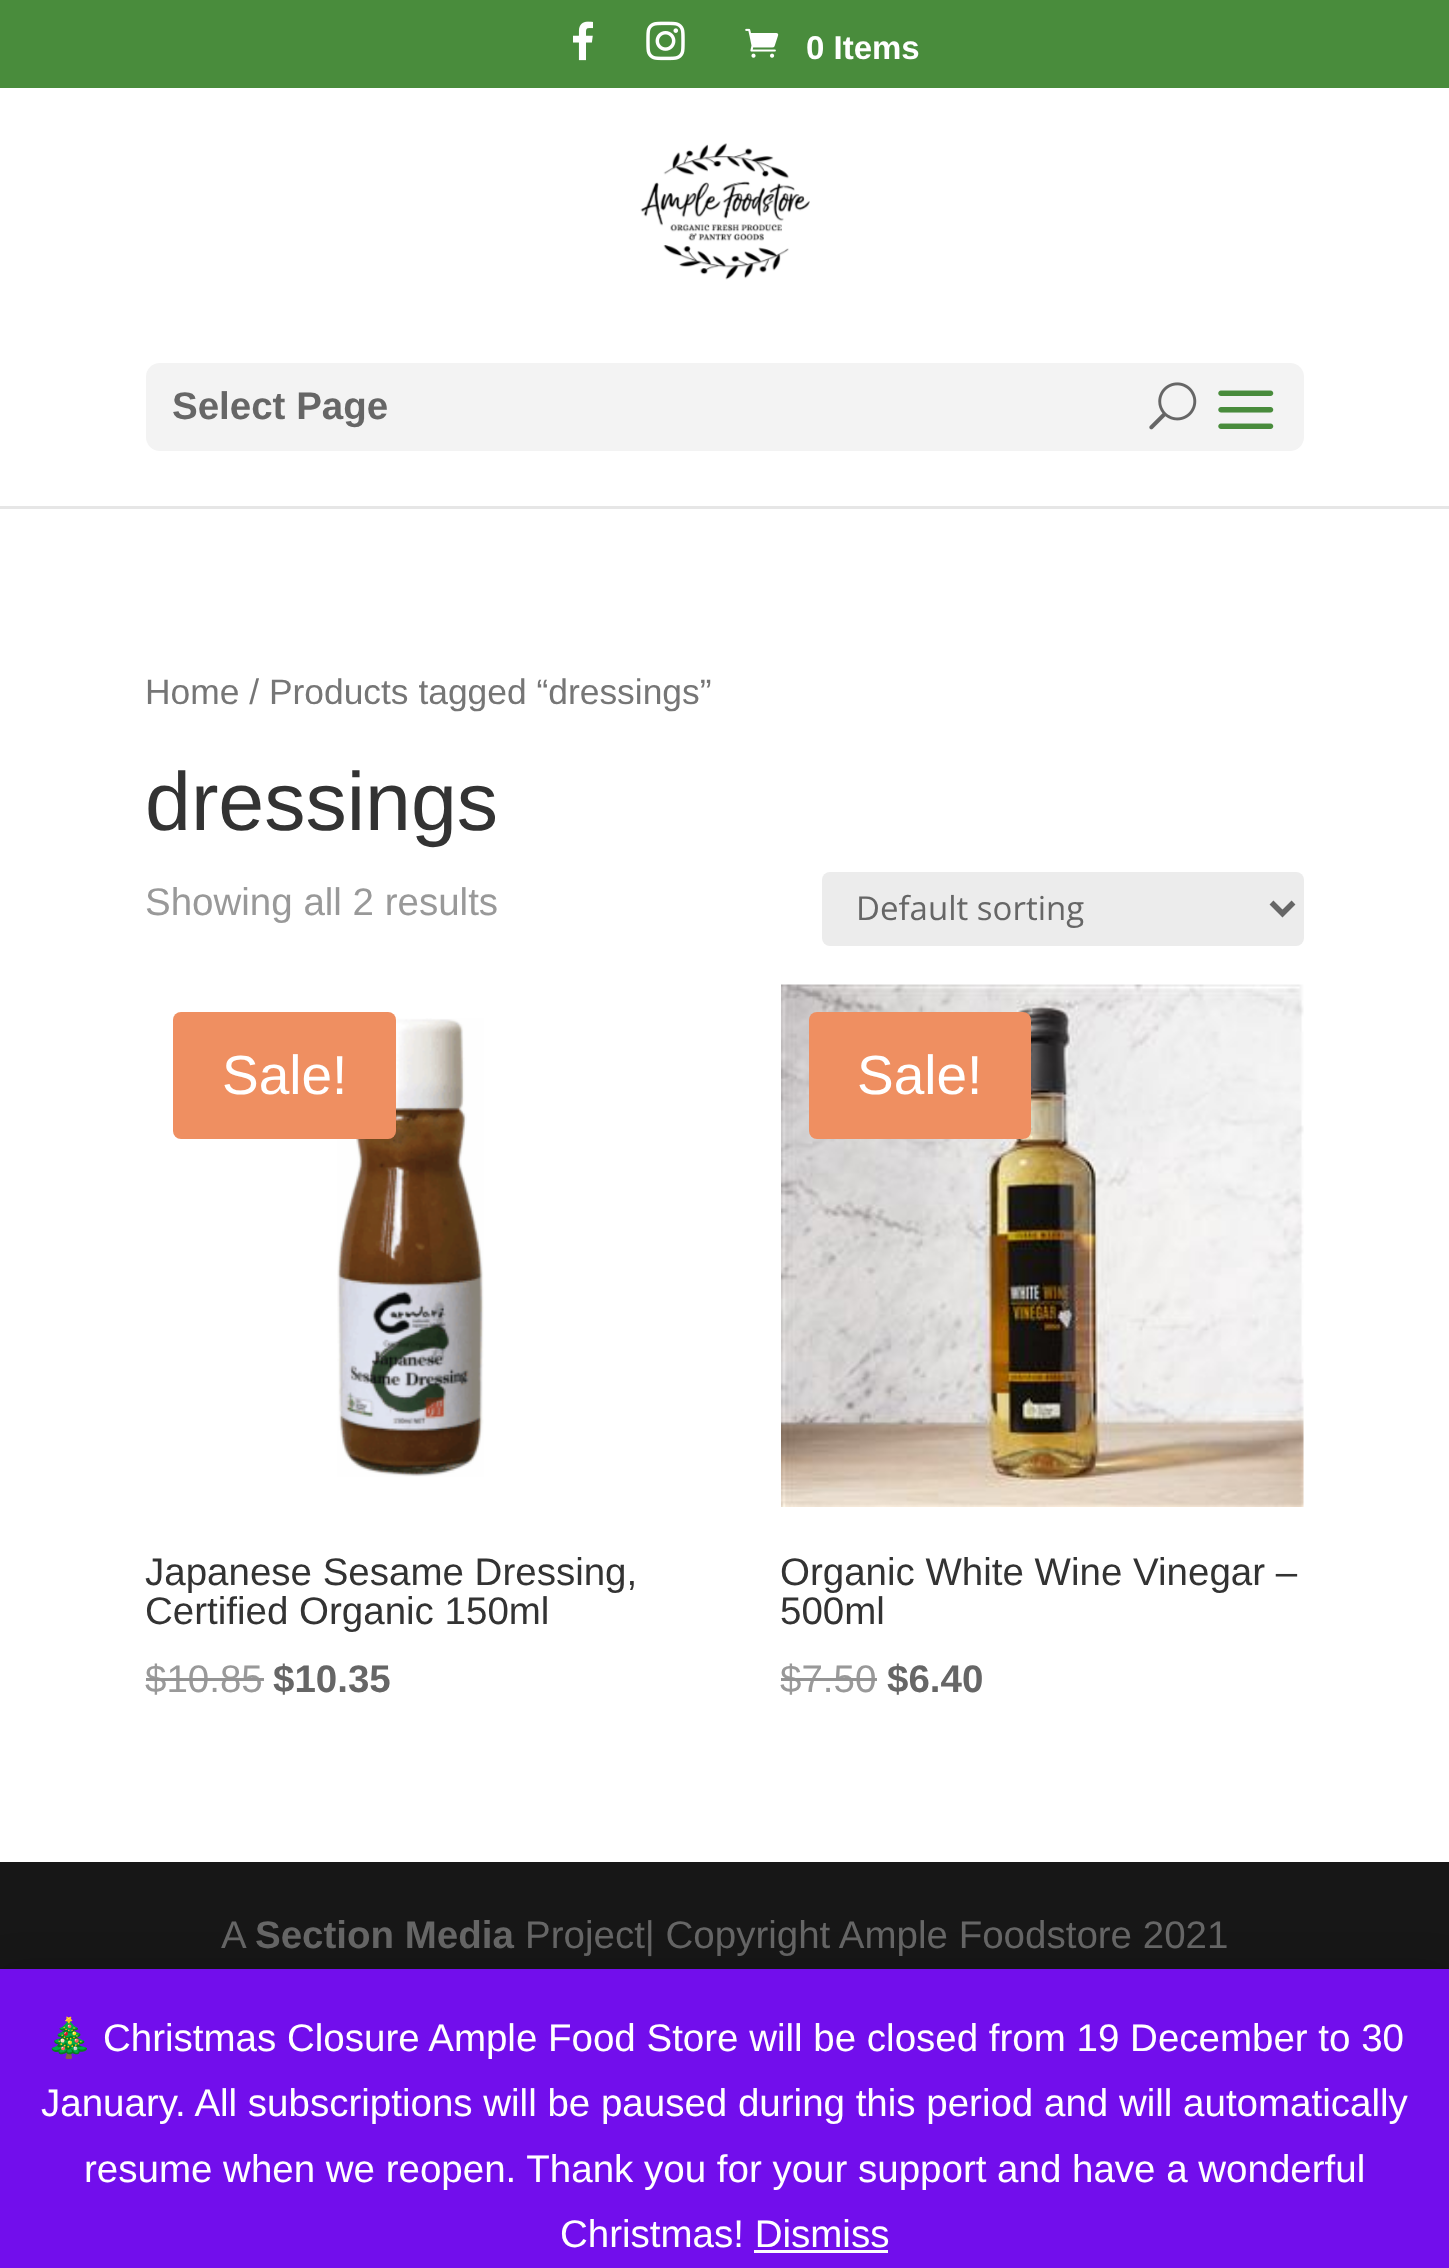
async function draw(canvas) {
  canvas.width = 1449;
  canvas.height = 2268;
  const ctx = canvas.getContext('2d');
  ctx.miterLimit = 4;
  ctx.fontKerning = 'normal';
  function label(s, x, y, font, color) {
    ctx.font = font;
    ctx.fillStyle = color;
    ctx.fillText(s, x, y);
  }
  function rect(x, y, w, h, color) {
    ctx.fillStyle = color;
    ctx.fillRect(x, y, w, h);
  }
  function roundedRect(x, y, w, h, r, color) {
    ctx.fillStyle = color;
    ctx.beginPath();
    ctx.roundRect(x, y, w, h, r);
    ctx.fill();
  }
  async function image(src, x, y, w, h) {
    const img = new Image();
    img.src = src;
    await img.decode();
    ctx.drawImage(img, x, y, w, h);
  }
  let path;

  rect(0, 0, 1449, 2268, '#fff');
  rect(0, 0, 1449, 88, '#498c3c');
  await image('assets/img1.png', 573, 21, 20, 40);
  await image('assets/img2.png', 646, 21, 39, 40);
  await image('assets/img3.png', 745, 28, 34, 30);
  label('0 Items', 806, 59, 'bold 33px Liberation Sans', '#fff');
  rect(0, 506, 1449, 3, '#e6e6e6');
  await image('assets/img4.png', 640, 143, 170, 137);
  roundedRect(146, 363, 1158, 88, 14, '#f3f3f3');
  label('Select Page', 172, 419, 'bold 38.5px Liberation Sans', '#666');
  await image('assets/img5.png', 1218, 390, 56, 39);
  await image('assets/img6.png', 1149, 382, 48, 48);
  label('Home / Products tagged “dressings”', 145, 704, '35.4px Liberation Sans', '#767676');
  label('dressings', 145, 830, '82.5px Liberation Sans', '#333');
  label('Showing all 2 results', 145, 915, '38.5px Liberation Sans', '#999');
  roundedRect(822, 872, 482, 74, 8, '#ececec');
  path = new Path2D('M1271.5 902.5L1282.5 913.5L1293.5 902.5');
  ctx.strokeStyle = '#666';
  ctx.lineWidth = 5.5;
  ctx.stroke(path);
  label('Default sorting', 856, 920, '33px Open Sans', '#666');
  await image('assets/img7.png', 337, 1018, 147, 459);
  roundedRect(173, 1012, 223, 127, 8, '#ef8f61');
  label('Sale!', 222, 1094, '55px Liberation Sans', '#fff');
  label('Japanese Sesame Dressing,', 145, 1585, '38.5px Liberation Sans', '#333');
  label('Certified Organic 150ml', 145, 1624, '38.5px Liberation Sans', '#333');
  label('$10.85', 145, 1692, '38.5px Liberation Sans', '#999');
  rect(146, 1678, 118, 3, '#949494');
  label('$10.35', 273, 1692, 'bold 38.5px Liberation Sans', '#666');
  await image('assets/img8.png', 781, 984, 523, 523);
  roundedRect(809, 1012, 222, 127, 8, '#ef8f61');
  label('Sale!', 857, 1094, '55px Liberation Sans', '#fff');
  label('Organic White Wine Vinegar –', 780, 1585, '38.5px Liberation Sans', '#333');
  label('500ml', 780, 1624, '38.5px Liberation Sans', '#333');
  label('$7.50', 780, 1692, '38.5px Liberation Sans', '#999');
  rect(781, 1678, 96, 3, '#949494');
  label('$6.40', 887, 1692, 'bold 38.5px Liberation Sans', '#666');
  rect(0, 1862, 1449, 107, '#171717');
  label('A', 221, 1948, '38.5px Liberation Sans', '#666');
  label('Section Media', 255, 1948, 'bold 38.5px Liberation Sans', '#666');
  label('Project| Copyright Ample Foodstore 2021', 525, 1948, '38.5px Liberation Sans', '#666');
  ctx.fillStyle = '#00000033';
  ctx.filter = 'blur(19px)';
  ctx.beginPath();
  ctx.rect(0, 1972, 1449, 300);
  ctx.fill();
  ctx.filter = 'none';
  rect(0, 1969, 1449, 299, '#720eec');
  label('🎄', 45, 2051, '38.5px Noto Color Emoji', '#fff');
  label('Christmas Closure Ample Food Store will be closed from 19 December to 30', 103, 2051, '38.5px Liberation Sans', '#fff');
  label('January. All subscriptions will be paused during this period and will automatically', 41, 2116, '38.5px Liberation Sans', '#fff');
  label('resume when we reopen. Thank you for your support and have a wonderful', 84, 2182, '38.5px Liberation Sans', '#fff');
  label('Christmas! Dismiss', 560, 2247, '38.5px Liberation Sans', '#fff');
  rect(754, 2250, 134, 3, '#fcfbfe');
}

draw(document.querySelector('canvas'));
